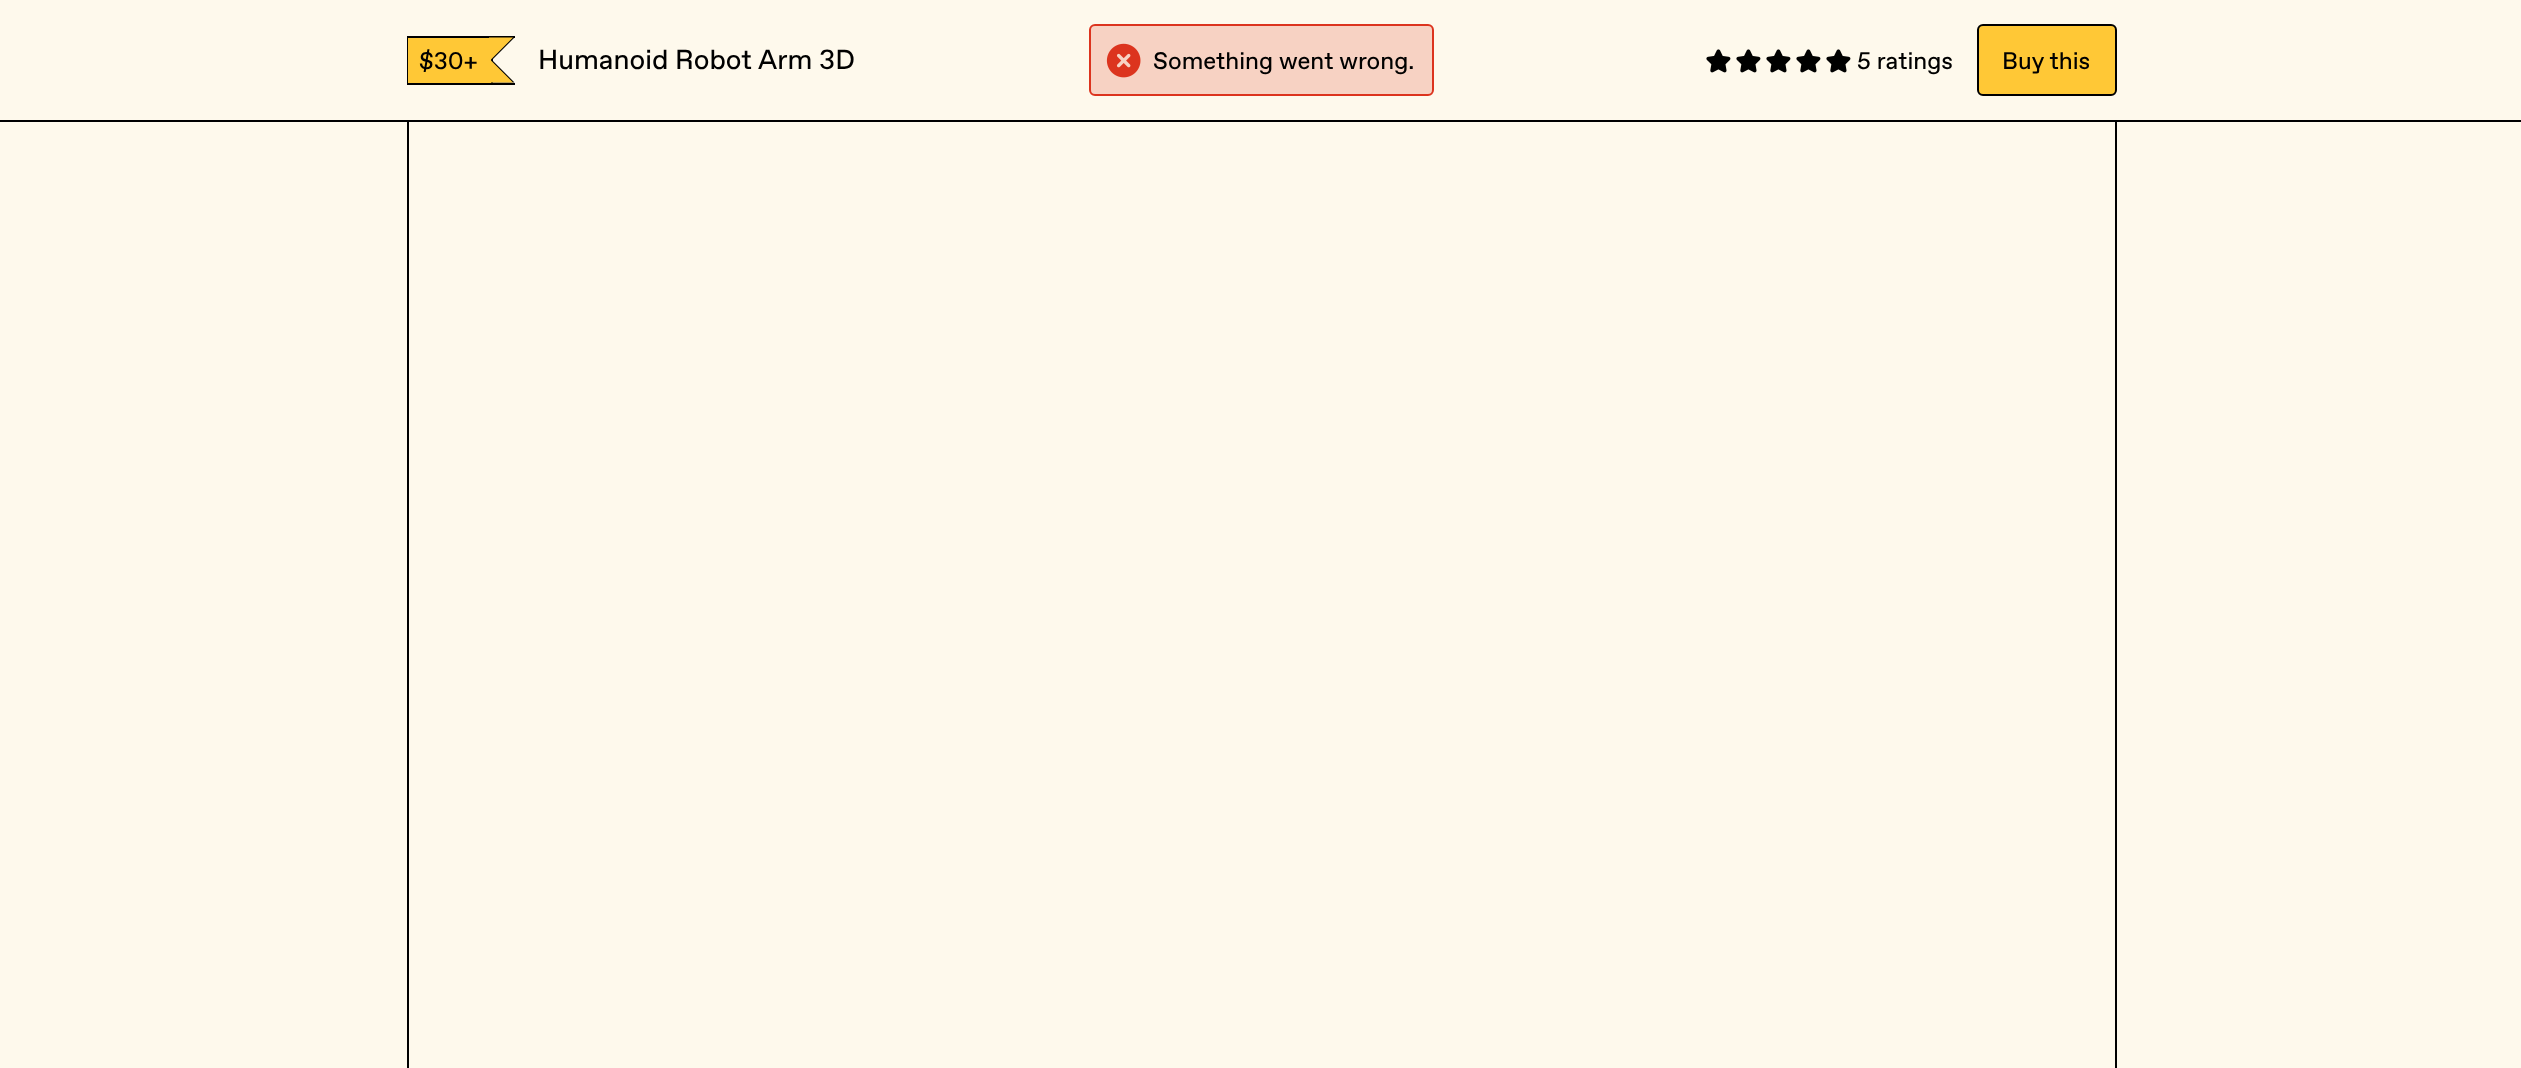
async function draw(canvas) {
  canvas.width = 2521;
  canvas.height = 1068;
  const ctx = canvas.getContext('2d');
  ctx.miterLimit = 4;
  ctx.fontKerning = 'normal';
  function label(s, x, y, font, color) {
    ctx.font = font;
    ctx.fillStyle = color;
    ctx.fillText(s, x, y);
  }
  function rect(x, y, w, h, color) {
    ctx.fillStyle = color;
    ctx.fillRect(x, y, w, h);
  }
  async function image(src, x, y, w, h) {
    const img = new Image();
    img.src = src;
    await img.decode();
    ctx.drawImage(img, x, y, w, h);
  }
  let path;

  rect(0, 0, 2521, 1068, '#fef9ec');
  ctx.strokeStyle = '#000';
  ctx.lineWidth = 2;
  ctx.strokeRect(408, 97, 1708, 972);
  ctx.fillStyle = '#000';
  path = new Path2D('M0 120V122H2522V2V120Z');
  ctx.fill(path);
  rect(407, 96, 1710, 24, '#fef9ec');
  rect(407, 36, 108, 2, '#000');
  rect(407, 83, 108, 2, '#000');
  rect(407, 36, 2, 48, '#000');
  path = new Path2D('M490.5 37.5H514.5L492 60ZM514.5 82.5H490.5L492 60Z');
  ctx.fill(path);
  rect(491, 57, 2, 26, '#000');
  ctx.fillStyle = '#ffc836';
  path = new Path2D('M489 37.5H513L490.5 60ZM513 82.5H489L490.5 60Z');
  ctx.fill(path);
  rect(489, 38, 2, 45, '#ffc836');
  rect(408, 38, 81, 45, '#ffc836');
  label('$30+', 419, 69, '24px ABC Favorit', '#000');
  label('Humanoid Robot Arm 3D', 538, 69, '27.6px ABC Favorit', '#000');
  await image('assets/img1.png', 1706, 49, 25, 24);
  await image('assets/img1.png', 1736, 49, 25, 24);
  await image('assets/img1.png', 1766, 49, 25, 24);
  await image('assets/img1.png', 1796, 49, 25, 24);
  await image('assets/img1.png', 1826, 49, 25, 24);
  label('5 ratings', 1857, 69, '24px ABC Favorit', '#000');
  ctx.fillStyle = '#ffc836';
  ctx.beginPath();
  ctx.roundRect(1978, 25, 138, 70, 5);
  ctx.fill();
  ctx.stroke();
  label('Buy this', 2002, 69, '24px ABC Favorit', '#000');
  ctx.fillStyle = '#f7d2c3';
  ctx.beginPath();
  ctx.roundRect(1090, 25, 343, 70, 5);
  ctx.fill();
  ctx.strokeStyle = '#dc341e';
  ctx.stroke();
  await image('assets/img2.png', 1106, 43, 35, 35);
  label('Something went wrong.', 1153, 69, '24px ABC Favorit', '#000');
}

draw(document.querySelector('canvas'));
